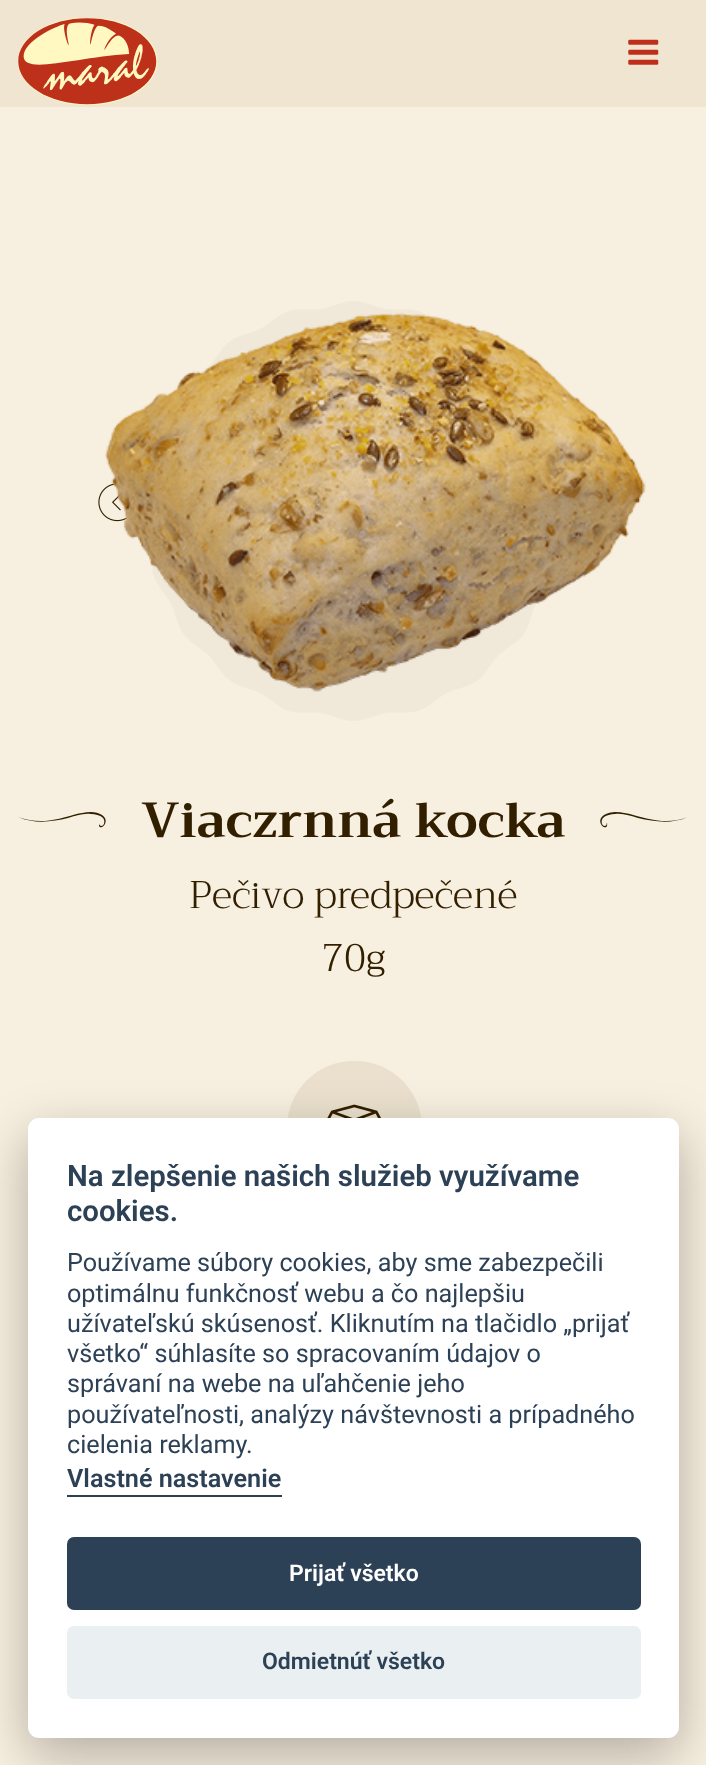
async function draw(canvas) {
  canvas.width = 706;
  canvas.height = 1765;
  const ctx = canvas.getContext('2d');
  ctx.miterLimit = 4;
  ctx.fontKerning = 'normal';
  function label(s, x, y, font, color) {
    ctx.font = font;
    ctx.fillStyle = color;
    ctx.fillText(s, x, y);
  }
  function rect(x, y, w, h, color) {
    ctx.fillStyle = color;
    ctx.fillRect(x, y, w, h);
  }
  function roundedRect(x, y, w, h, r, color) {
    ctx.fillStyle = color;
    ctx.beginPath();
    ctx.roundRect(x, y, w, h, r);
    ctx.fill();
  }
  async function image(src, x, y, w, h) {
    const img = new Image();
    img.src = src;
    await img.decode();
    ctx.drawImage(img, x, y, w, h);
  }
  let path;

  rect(0, 0, 706, 1765, '#f7efdf');
  rect(0, 0, 706, 107, '#f0e5d0');
  await image('assets/img1.png', 18, 18, 140, 87);
  await image('assets/img2.png', 628, 39, 31, 26);
  await image('assets/img3.png', 152, 301, 386, 420);
  await image('assets/img5.png', 98, 483, 30, 39);
  await image('assets/img4.png', 105, 313, 541, 379);
  ctx.fillStyle = '#311f00';
  path = new Path2D('M18 817C31 822 45 822 58 819C69 817 91 807 102 815C111 821 101 831 99 826C99 825 99 823 100 823C98 823 100 826 101 826C105 826 105 820 103 818C100 815 95 814 91 814C83 813 75 816 68 818C52 822 34 824 18 817Z');
  ctx.fill(path);
  label('Viaczrnná kocka', 141, 837, 'bold 49px Trirong', '#311f00');
  path = new Path2D('M688 817C676 822 662 822 649 819C637 817 616 807 604 815C595 821 605 831 607 826C607 825 608 823 606 823C608 823 606 826 605 826C601 826 601 820 603 818C606 815 611 814 615 814C623 813 631 816 638 818C655 822 672 824 688 817Z');
  ctx.fill(path);
  label('Pečivo predpečené', 189, 908, '300 38.5px Trirong', '#311f00');
  label('70g', 322, 971, '300 38.5px Trirong', '#311f00');
  roundedRect(287, 1061, 135, 134, 67, '#eae0cd');
  await image('assets/img6.png', 327, 1104, 54, 14);
  ctx.fillStyle = '#02020347';
  ctx.filter = 'blur(26px)';
  ctx.beginPath();
  ctx.roundRect(28, 1136, 651, 619, 11);
  ctx.fill();
  ctx.filter = 'none';
  roundedRect(28, 1118, 651, 620, 11, '#fff');
  label('Na zlepšenie našich služieb využívame', 67, 1186, '600 29.4px Roboto', '#2d4156');
  label('cookies.', 67, 1221, '600 29.4px Roboto', '#2d4156');
  label('Používame súbory cookies, aby sme zabezpečili', 67, 1271, '25.2px Roboto', '#2d4156');
  label('optimálnu funkčnosť webu a čo najlepšiu', 67, 1302, '25.2px Roboto', '#2d4156');
  label('užívateľskú skúsenosť. Kliknutím na tlačidlo „prijať', 67, 1332, '25.2px Roboto', '#2d4156');
  label('všetko“ súhlasíte so spracovaním údajov o', 67, 1362, '25.2px Roboto', '#2d4156');
  label('správaní na webe na uľahčenie jeho', 67, 1392, '25.2px Roboto', '#2d4156');
  label('používateľnosti, analýzy návštevnosti a prípadného', 67, 1423, '25.2px Roboto', '#2d4156');
  label('cielenia reklamy.', 67, 1453, '25.2px Roboto', '#2d4156');
  label('Vlastné nastavenie', 67, 1487, '600 25.2px Roboto', '#2d4156');
  rect(67, 1495, 215, 2, '#2d4156');
  roundedRect(67, 1537, 574, 73, 7, '#2d4156');
  label('Prijať všetko', 289, 1581, '600 23px Roboto', '#fff');
  roundedRect(67, 1626, 574, 73, 7, '#eaeff2');
  label('Odmietnúť všetko', 262, 1669, '600 23px Roboto', '#2d4156');
}

draw(document.querySelector('canvas'));
